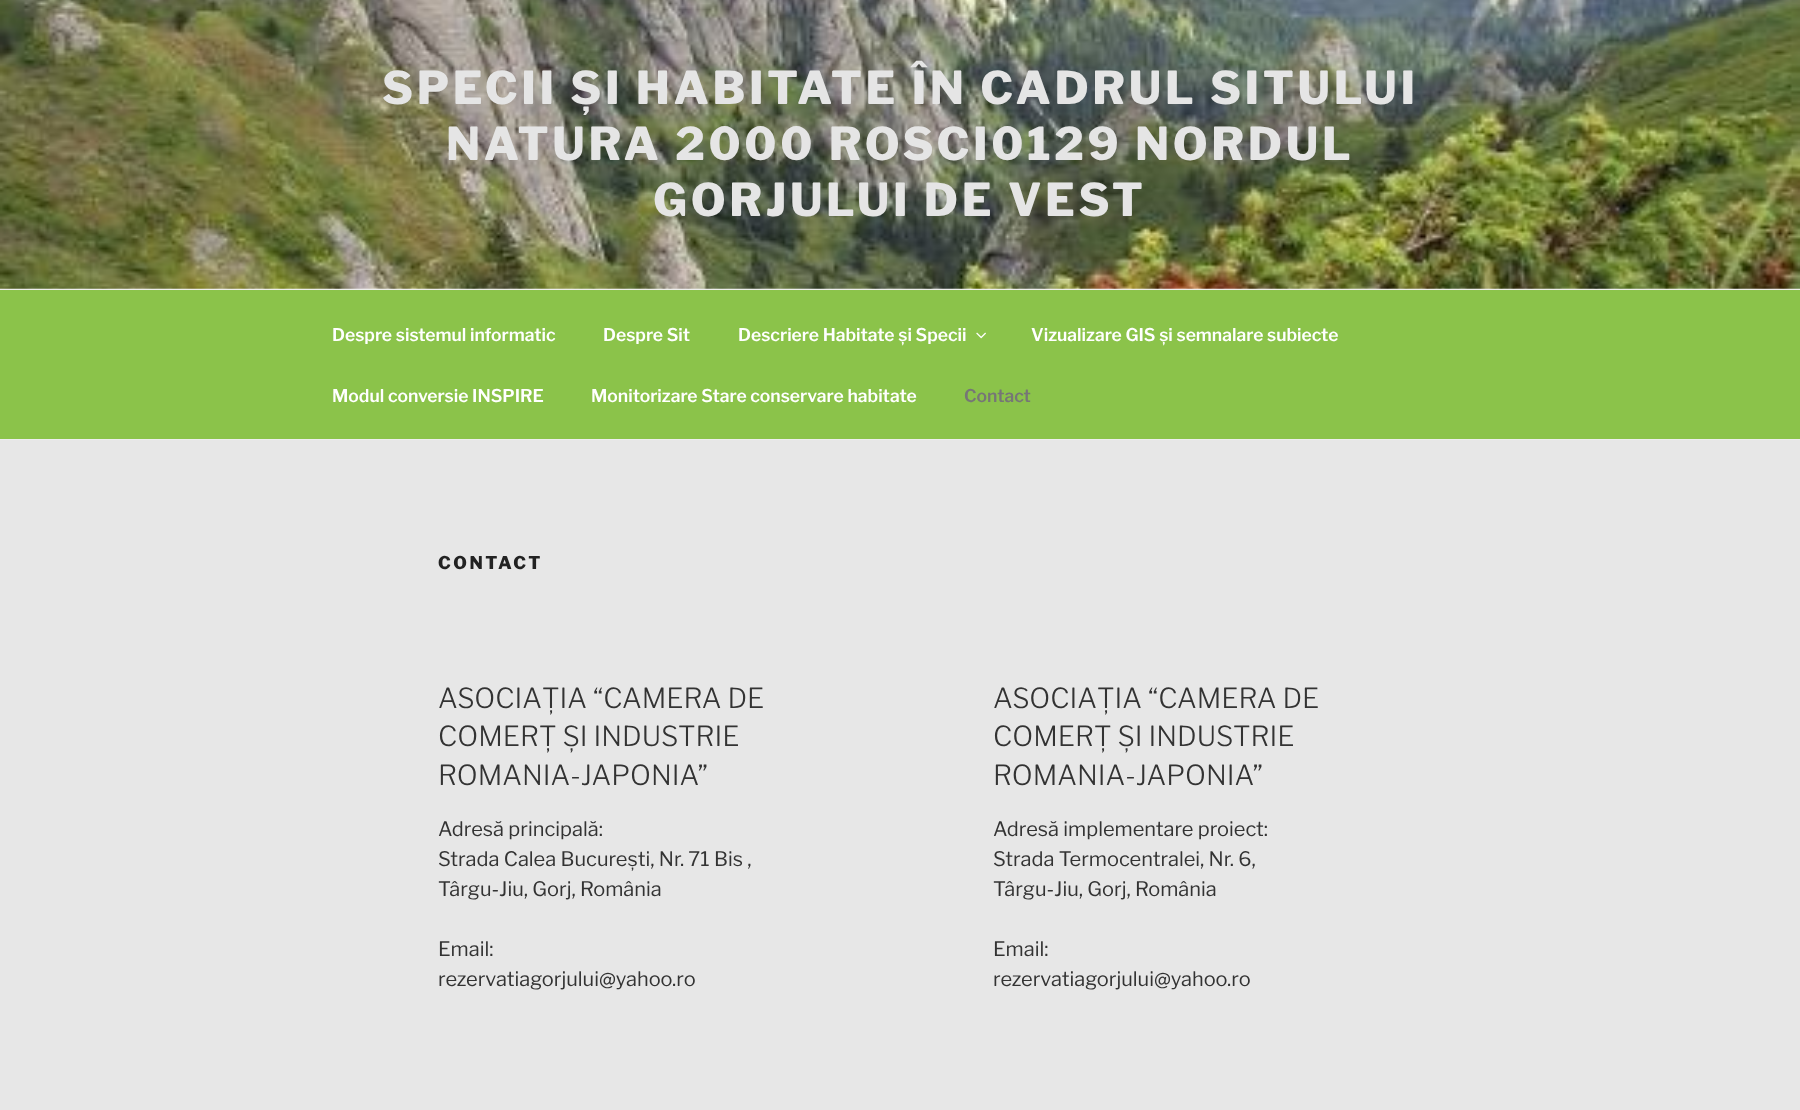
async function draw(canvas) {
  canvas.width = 1800;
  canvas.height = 1110;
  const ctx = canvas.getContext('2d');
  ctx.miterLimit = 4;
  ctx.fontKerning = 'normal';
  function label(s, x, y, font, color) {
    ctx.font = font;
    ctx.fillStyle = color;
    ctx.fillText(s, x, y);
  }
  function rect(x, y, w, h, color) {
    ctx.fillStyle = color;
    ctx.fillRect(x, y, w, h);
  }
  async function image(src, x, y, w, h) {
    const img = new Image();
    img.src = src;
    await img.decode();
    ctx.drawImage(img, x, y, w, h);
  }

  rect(0, 0, 1800, 1110, '#fff');
  await image('assets/img1.png', 0, 0, 1800, 289);
  ctx.letterSpacing = '3.6px';
  label('SPECII ȘI HABITATE ÎN CADRUL SITULUI', 382, 104, '100 45px "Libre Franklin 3"', '#e5e5e5');
  label('NATURA 2000 ROSCI0129 NORDUL', 446, 160, '100 45px "Libre Franklin 3"', '#e5e5e5');
  label('GORJULUI DE VEST', 653, 216, '100 45px "Libre Franklin 3"', '#e5e5e5');
  rect(0, 290, 1800, 149, '#8bc34a');
  rect(0, 289, 1800, 1, '#eee');
  rect(0, 439, 1800, 1, '#eee');
  ctx.letterSpacing = '0px';
  label('Despre sistemul informatic', 332, 341, '100 17.5px "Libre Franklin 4"', '#fff');
  label('Despre Sit', 603, 341, '100 17.5px "Libre Franklin 4"', '#fff');
  label('Descriere Habitate și Specii', 738, 341, '100 17.5px "Libre Franklin 4"', '#fff');
  await image('assets/img2.png', 976, 332, 10, 7);
  label('Vizualizare GIS și semnalare subiecte', 1031, 341, '100 17.5px "Libre Franklin 4"', '#fff');
  label('Modul conversie INSPIRE', 332, 402, '100 17.5px "Libre Franklin 4"', '#fff');
  label('Monitorizare Stare conservare habitate', 591, 402, '100 17.5px "Libre Franklin 4"', '#fff');
  label('Contact', 964, 402, '100 17.5px "Libre Franklin 4"', '#767676');
  rect(0, 440, 1800, 670, '#e7e7e7');
  ctx.letterSpacing = '2.5px';
  label('CONTACT', 438, 569, '100 17.5px "Libre Franklin 3"', '#222');
  ctx.letterSpacing = '0px';
  label('ASOCIAȚIA “CAMERA DE', 438, 708, '100 27.5px Libre Franklin', '#333');
  label('COMERȚ ȘI INDUSTRIE', 438, 746, '100 27.5px Libre Franklin', '#333');
  label('ROMANIA-JAPONIA”', 438, 785, '100 27.5px Libre Franklin', '#333');
  label('Adresă principală:', 438, 836, '100 20px "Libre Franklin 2"', '#333');
  label('Strada Calea București, Nr. 71 Bis ,', 438, 866, '100 20px "Libre Franklin 2"', '#333');
  label('Târgu-Jiu, Gorj, România', 438, 896, '100 20px "Libre Franklin 2"', '#333');
  label('Email:', 438, 956, '100 20px "Libre Franklin 2"', '#333');
  label('rezervatiagorjului@yahoo.ro', 438, 986, '100 20px "Libre Franklin 2"', '#333');
  label('ASOCIAȚIA “CAMERA DE', 993, 708, '100 27.5px Libre Franklin', '#333');
  label('COMERȚ ȘI INDUSTRIE', 993, 746, '100 27.5px Libre Franklin', '#333');
  label('ROMANIA-JAPONIA”', 993, 785, '100 27.5px Libre Franklin', '#333');
  label('Adresă implementare proiect:', 993, 836, '100 20px "Libre Franklin 2"', '#333');
  label('Strada Termocentralei, Nr. 6,', 993, 866, '100 20px "Libre Franklin 2"', '#333');
  label('Târgu-Jiu, Gorj, România', 993, 896, '100 20px "Libre Franklin 2"', '#333');
  label('Email:', 993, 956, '100 20px "Libre Franklin 2"', '#333');
  label('rezervatiagorjului@yahoo.ro', 993, 986, '100 20px "Libre Franklin 2"', '#333');
}

draw(document.querySelector('canvas'));
